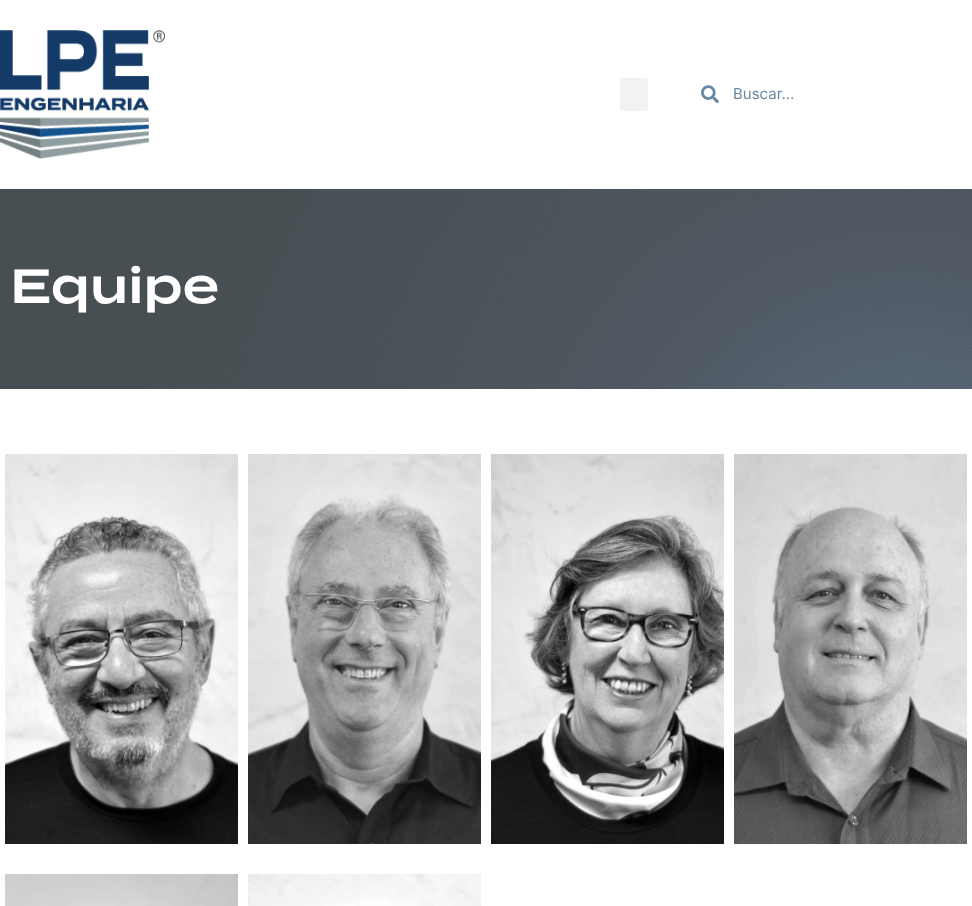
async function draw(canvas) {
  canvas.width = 972;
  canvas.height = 906;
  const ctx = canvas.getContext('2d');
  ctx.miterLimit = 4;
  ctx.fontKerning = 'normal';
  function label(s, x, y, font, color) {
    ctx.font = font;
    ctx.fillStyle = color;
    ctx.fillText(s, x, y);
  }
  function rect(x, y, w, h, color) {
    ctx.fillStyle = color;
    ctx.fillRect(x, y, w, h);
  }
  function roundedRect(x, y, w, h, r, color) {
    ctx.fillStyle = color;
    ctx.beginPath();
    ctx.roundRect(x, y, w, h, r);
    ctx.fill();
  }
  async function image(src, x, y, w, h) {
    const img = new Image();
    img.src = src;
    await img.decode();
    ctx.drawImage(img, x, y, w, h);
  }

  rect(0, 0, 972, 906, '#fff');
  await image('assets/img1.png', 0, 30, 165, 129);
  roundedRect(620, 78, 28, 33, 3, '#f2f2f2');
  await image('assets/img2.png', 701, 85, 18, 19);
  label('Buscar...', 733, 99, '15px Inter', '#6888a7');
  await image('assets/img3.png', 0, 189, 972, 200);
  label('Equipe', 10, 303, '600 48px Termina', '#fff');
  await image('assets/img4.png', 5, 454, 233, 390);
  await image('assets/img5.png', 248, 454, 233, 390);
  await image('assets/img6.png', 491, 454, 233, 390);
  await image('assets/img7.png', 734, 454, 233, 390);
  await image('assets/img8.png', 5, 874, 233, 32);
  await image('assets/img9.png', 248, 874, 233, 32);
}

draw(document.querySelector('canvas'));
